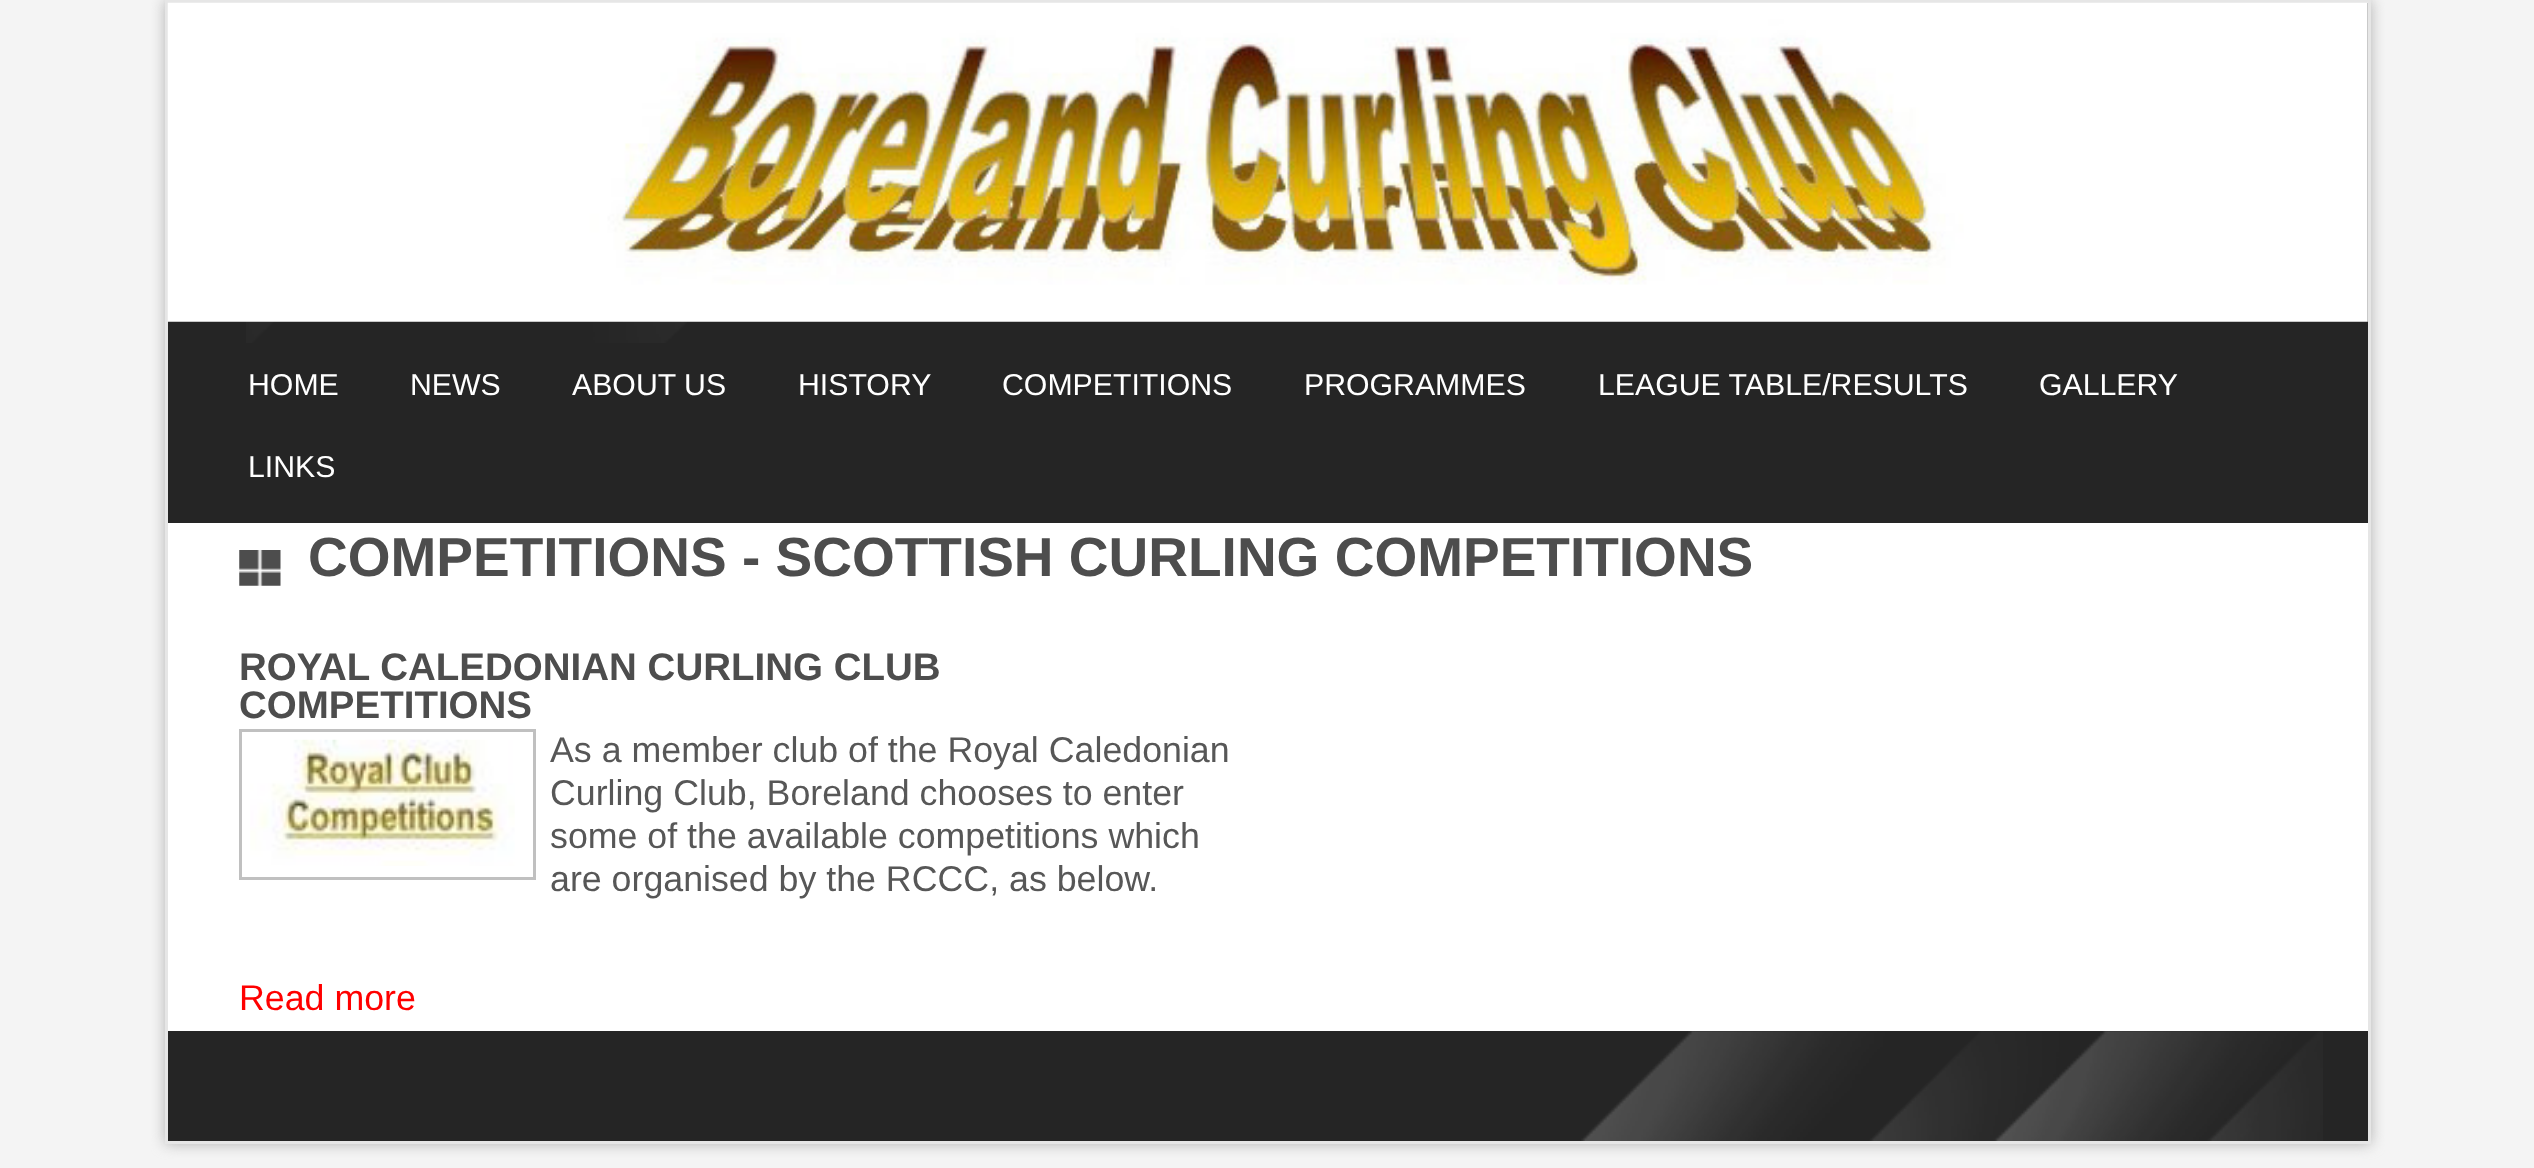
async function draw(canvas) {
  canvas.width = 2534;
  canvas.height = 1168;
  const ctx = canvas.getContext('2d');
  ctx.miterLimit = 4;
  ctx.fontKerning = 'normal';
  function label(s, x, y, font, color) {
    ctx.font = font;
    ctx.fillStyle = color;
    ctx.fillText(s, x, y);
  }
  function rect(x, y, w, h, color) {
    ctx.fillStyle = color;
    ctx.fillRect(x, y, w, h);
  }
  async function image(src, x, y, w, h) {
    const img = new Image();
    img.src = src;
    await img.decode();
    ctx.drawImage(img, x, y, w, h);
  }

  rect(0, 0, 2534, 1168, '#f4f4f4');
  ctx.fillStyle = '#b2b2b2';
  ctx.filter = 'blur(7px)';
  ctx.beginPath();
  ctx.rect(165, 0, 2206, 1144);
  ctx.fill();
  ctx.filter = 'none';
  rect(168, 523, 2200, 508, '#fff');
  ctx.strokeStyle = '#e6e6e6';
  ctx.lineWidth = 3;
  ctx.strokeRect(166.5, 1.5, 2203, 1141);
  rect(168, 3, 2200, 520, '#252525');
  await image('assets/img1.png', 246, 321, 441, 22);
  await image('assets/img2.png', 167, 2, 2201, 320);
  label('HOME', 248, 395, '30.25px Liberation Sans', '#fff');
  label('NEWS', 410, 395, '30.25px Liberation Sans', '#fff');
  label('ABOUT US', 572, 395, '30.25px Liberation Sans', '#fff');
  label('HISTORY', 798, 395, '30.25px Liberation Sans', '#fff');
  label('COMPETITIONS', 1002, 395, '30.25px Liberation Sans', '#fff');
  label('PROGRAMMES', 1304, 395, '30.25px Liberation Sans', '#fff');
  label('LEAGUE TABLE/RESULTS', 1598, 395, '30.25px Liberation Sans', '#fff');
  label('GALLERY', 2039, 395, '30.25px Liberation Sans', '#fff');
  label('LINKS', 248, 477, '30.25px Liberation Sans', '#fff');
  await image('assets/img3.png', 239, 550, 42, 36);
  label('COMPETITIONS - SCOTTISH CURLING COMPETITIONS', 308, 576, 'bold 55px Liberation Sans', '#4d4d4d');
  label('ROYAL CALEDONIAN CURLING CLUB', 239, 680, 'bold 38.5px Liberation Sans', '#4d4d4d');
  label('COMPETITIONS', 239, 718, 'bold 38.5px Liberation Sans', '#4d4d4d');
  ctx.strokeStyle = '#c0c0c0';
  ctx.strokeRect(240.5, 730.5, 294, 148);
  await image('assets/img4.png', 250, 739, 265, 127);
  label('As a member club of the Royal Caledonian', 550, 762, '35.75px Liberation Sans', '#575757');
  label('Curling Club, Boreland chooses to enter', 550, 805, '35.75px Liberation Sans', '#575757');
  label('some of the available competitions which', 550, 848, '35.75px Liberation Sans', '#575757');
  label('are organised by the RCCC, as below.', 550, 891, '35.75px Liberation Sans', '#575757');
  label('Read more', 239, 1010, '35.75px Liberation Sans', '#f00');
  rect(168, 1031, 2200, 110, '#252525');
  await image('assets/img5.png', 1581, 1031, 742, 110);
}

draw(document.querySelector('canvas'));
